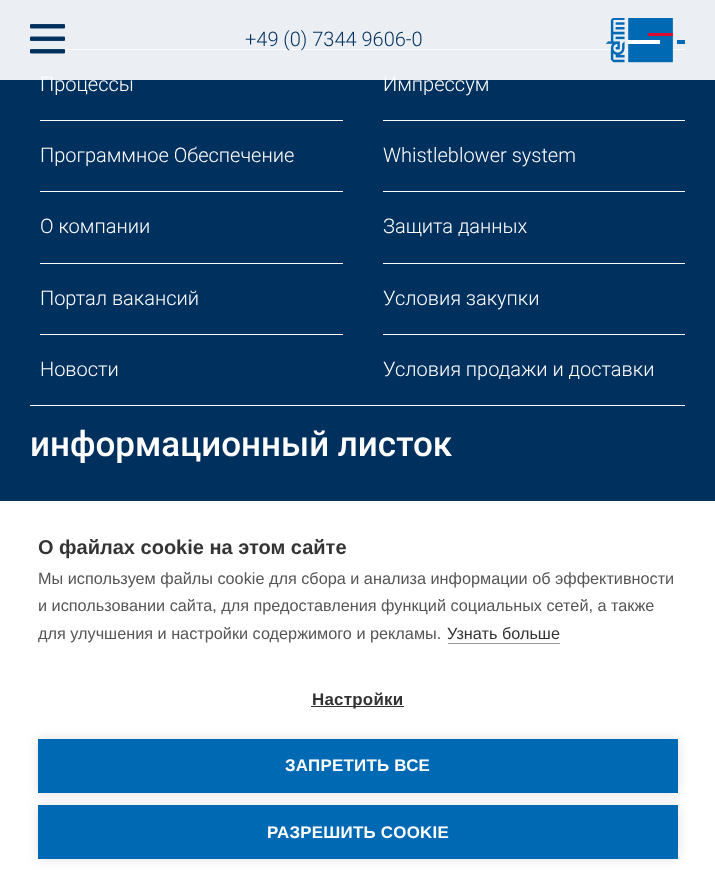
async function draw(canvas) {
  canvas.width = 715;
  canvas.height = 890;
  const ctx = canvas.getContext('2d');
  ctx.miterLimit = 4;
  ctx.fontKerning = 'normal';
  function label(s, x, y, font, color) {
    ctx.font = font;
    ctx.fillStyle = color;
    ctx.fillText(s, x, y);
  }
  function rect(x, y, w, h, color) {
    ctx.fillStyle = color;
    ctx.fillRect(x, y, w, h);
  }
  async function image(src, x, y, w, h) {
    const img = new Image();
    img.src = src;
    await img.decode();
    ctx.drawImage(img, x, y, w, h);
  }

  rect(0, 0, 715, 890, '#00305d');
  rect(30, 49, 655, 1, '#fff');
  label('Процессы', 40, 91, '300 20px Roboto', '#fff');
  label('Импрессум', 383, 91, '300 20px Roboto', '#fff');
  rect(0, 0, 715, 80, '#ffffffeb');
  await image('assets/img1.png', 30, 24, 35, 30);
  label('+49 (0) 7344 9606-0', 245, 46, '300 20px Roboto', '#00305d');
  await image('assets/img2.png', 605, 18, 80, 45);
  rect(40, 120, 303, 1, '#fff');
  label('Программное Обеспечение', 40, 162, '300 20px Roboto', '#fff');
  rect(40, 191, 303, 1, '#fff');
  label('О компании', 40, 233, '300 20px Roboto', '#fff');
  rect(40, 263, 303, 1, '#fff');
  label('Портал вакансий', 40, 305, '300 20px Roboto', '#fff');
  rect(40, 334, 303, 1, '#fff');
  label('Новости', 40, 376, '300 20px Roboto', '#fff');
  rect(383, 120, 302, 1, '#fff');
  label('Whistleblower system', 383, 162, '300 20px Roboto', '#fff');
  rect(383, 191, 302, 1, '#fff');
  label('Защита данных', 383, 233, '300 20px Roboto', '#fff');
  rect(383, 263, 302, 1, '#fff');
  label('Условия закупки', 383, 305, '300 20px Roboto', '#fff');
  rect(383, 334, 302, 1, '#fff');
  label('Условия продажи и доставки', 383, 376, '300 20px Roboto', '#fff');
  rect(30, 405, 655, 1, '#fff');
  label('информационный листок', 30, 456, '500 35px Roboto', '#fff');
  rect(0, 501, 715, 389, '#fff');
  label('О файлах cookie на этом сайте', 38, 554, 'bold 20px Liberation Sans', '#333');
  label('Мы используем файлы cookie для сбора и анализа информации об эффективности', 38, 584, '16.25px Liberation Sans', '#555');
  label('и использовании сайта, для предоставления функций социальных сетей, а также', 38, 611, '16.25px Liberation Sans', '#555');
  ctx.save();
  ctx.beginPath();
  ctx.rect(38, 533, 640, 115);
  ctx.clip();
  label('для улучшения и настройки содержимого и рекламы.', 38, 639, '16.25px Liberation Sans', '#555');
  ctx.restore();
  label('Узнать больше', 447, 639, '16.25px Liberation Sans', '#333');
  rect(448, 643, 112, 1, '#999');
  rect(311, 706, 93, 1, '#333');
  ctx.letterSpacing = '0.25px';
  label('Настройки', 312, 705, 'bold 16.9px Liberation Sans', '#333');
  ctx.fillStyle = '#0000001f';
  ctx.filter = 'blur(6px)';
  ctx.beginPath();
  ctx.rect(38, 739, 640, 54);
  ctx.fill();
  ctx.filter = 'none';
  rect(38, 739, 640, 54, '#0069b4');
  label('ЗАПРЕТИТЬ ВСЕ', 285, 771, 'bold 16.9px Liberation Sans', '#fff');
  ctx.fillStyle = '#0000001f';
  ctx.filter = 'blur(6px)';
  ctx.beginPath();
  ctx.rect(38, 805, 640, 54);
  ctx.fill();
  ctx.filter = 'none';
  rect(38, 805, 640, 54, '#0069b4');
  label('РАЗРЕШИТЬ COOKIE', 267, 838, 'bold 16.9px Liberation Sans', '#fff');
}

draw(document.querySelector('canvas'));
